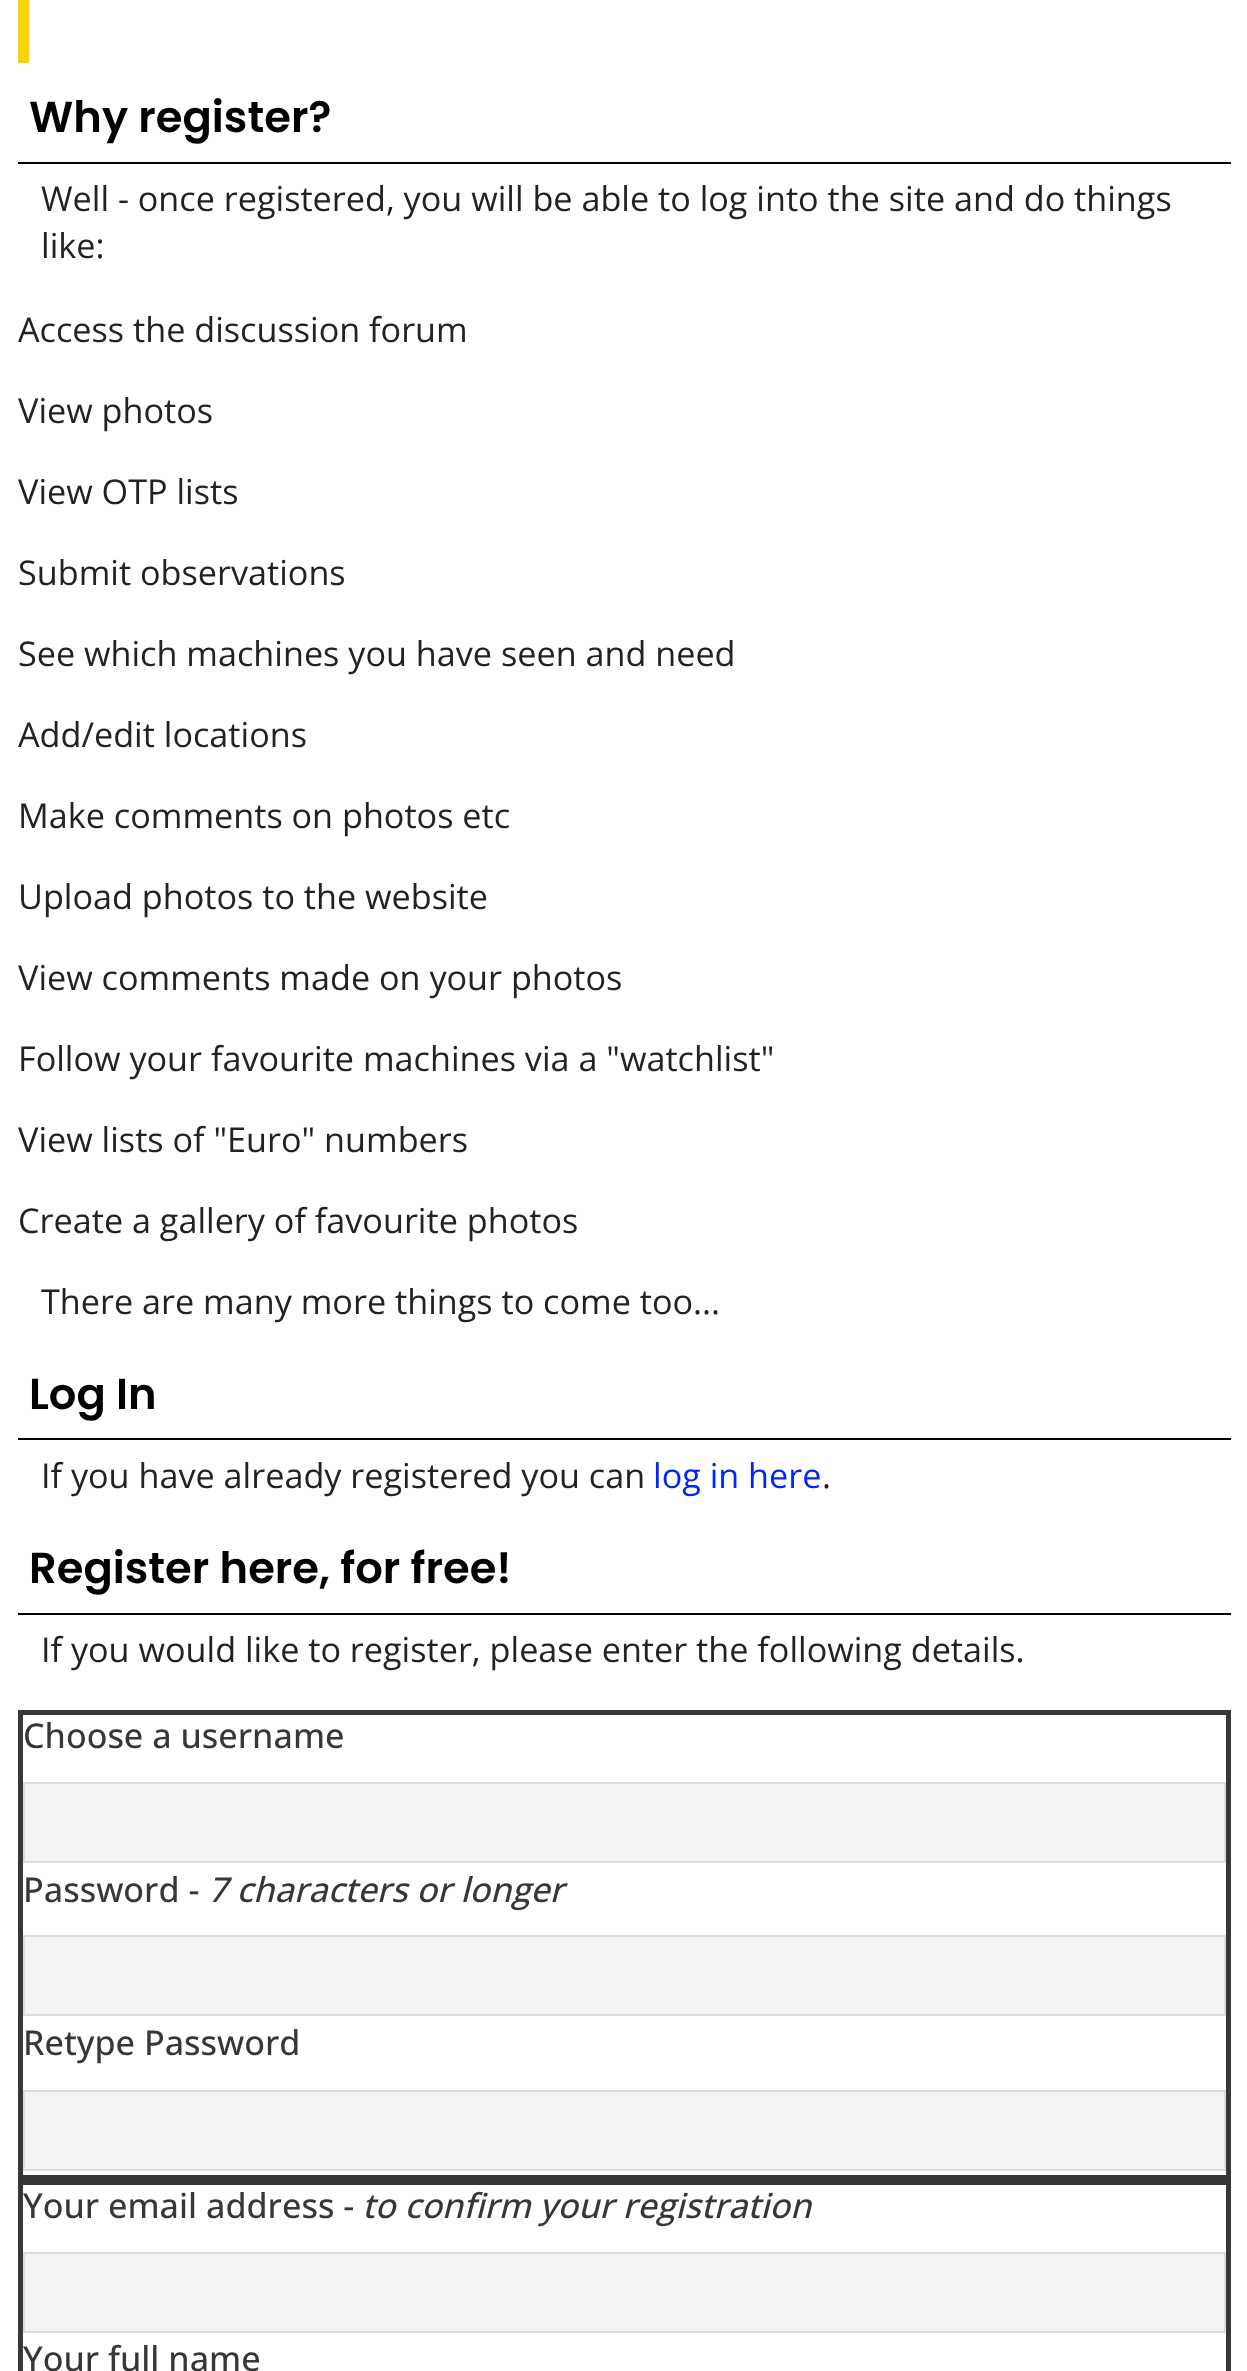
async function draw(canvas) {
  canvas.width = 1247;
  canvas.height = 2371;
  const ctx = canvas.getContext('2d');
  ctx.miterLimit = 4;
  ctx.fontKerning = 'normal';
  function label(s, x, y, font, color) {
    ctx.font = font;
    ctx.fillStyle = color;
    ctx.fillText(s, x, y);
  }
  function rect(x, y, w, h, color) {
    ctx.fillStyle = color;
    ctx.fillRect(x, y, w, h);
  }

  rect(0, 0, 1247, 2371, '#fff');
  rect(18, 0, 11, 63, '#fad300');
  rect(18, 162, 1213, 2, '#000');
  label('Why register?', 29, 132, '600 43.25px Poppins', '#000');
  label('Well - once registered, you will be able to log into the site and do things', 41, 211, '34.2px Open Sans', '#222');
  label('like:', 41, 258, '34.2px Open Sans', '#222');
  label('Access the discussion forum', 18, 342, '34.2px Open Sans', '#222');
  label('View photos', 18, 423, '34.2px Open Sans', '#222');
  label('View OTP lists', 18, 504, '34.2px Open Sans', '#222');
  label('Submit observations', 18, 585, '34.2px Open Sans', '#222');
  label('See which machines you have seen and need', 18, 666, '34.2px Open Sans', '#222');
  label('Add/edit locations', 18, 747, '34.2px Open Sans', '#222');
  label('Make comments on photos etc', 18, 828, '34.2px Open Sans', '#222');
  label('Upload photos to the website', 18, 909, '34.2px Open Sans', '#222');
  label('View comments made on your photos', 18, 990, '34.2px Open Sans', '#222');
  label('Follow your favourite machines via a "watchlist"', 18, 1071, '34.2px Open Sans', '#222');
  label('View lists of "Euro" numbers', 18, 1152, '34.2px Open Sans', '#222');
  label('Create a gallery of favourite photos', 18, 1233, '34.2px Open Sans', '#222');
  label('There are many more things to come too...', 41, 1314, '34.2px Open Sans', '#222');
  rect(18, 1438, 1213, 2, '#000');
  label('Log In', 29, 1409, '600 43.25px Poppins', '#000');
  label('If you have already registered you can', 41, 1488, '34.2px Open Sans', '#222');
  label('log in here', 653, 1488, '34.2px Open Sans', '#0027fa');
  label('.', 822, 1488, '34.2px Open Sans', '#222');
  rect(18, 1613, 1213, 2, '#000');
  label('Register here, for free!', 29, 1583, '600 43.25px Poppins', '#000');
  label('If you would like to register, please enter the following details.', 41, 1662, '34.2px Open Sans', '#222');
  ctx.strokeStyle = '#373737';
  ctx.lineWidth = 5;
  ctx.strokeRect(20.5, 1712.5, 1208, 465);
  label('Choose a username', 23, 1748, '500 34.2px Open Sans', '#373737');
  ctx.fillStyle = '#f3f3f3';
  ctx.beginPath();
  ctx.rect(24, 1783, 1201, 79);
  ctx.fill();
  ctx.strokeStyle = '#ddd';
  ctx.lineWidth = 2;
  ctx.stroke();
  label('Password -', 23, 1902, '500 34.2px Open Sans', '#373737');
  label('7 characters or longer', 208, 1902, 'italic 500 34.2px Open Sans', '#373737');
  ctx.fillStyle = '#f3f3f3';
  ctx.beginPath();
  ctx.rect(24, 1936, 1201, 79);
  ctx.fill();
  ctx.stroke();
  label('Retype Password', 23, 2055, '500 34.2px Open Sans', '#373737');
  ctx.fillStyle = '#f3f3f3';
  ctx.beginPath();
  ctx.rect(24, 2091, 1201, 79);
  ctx.fill();
  ctx.stroke();
  ctx.strokeStyle = '#373737';
  ctx.lineWidth = 5;
  ctx.strokeRect(20.5, 2182.5, 1208, 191);
  label('Your email address -', 23, 2218, '500 34.2px Open Sans', '#373737');
  label('to confirm your registration', 362, 2218, 'italic 500 34.2px Open Sans', '#373737');
  ctx.fillStyle = '#f3f3f3';
  ctx.beginPath();
  ctx.rect(24, 2253, 1201, 79);
  ctx.fill();
  ctx.strokeStyle = '#ddd';
  ctx.lineWidth = 2;
  ctx.stroke();
  label('Your full name', 23, 2371, '500 34.2px Open Sans', '#373737');
}

draw(document.querySelector('canvas'));
